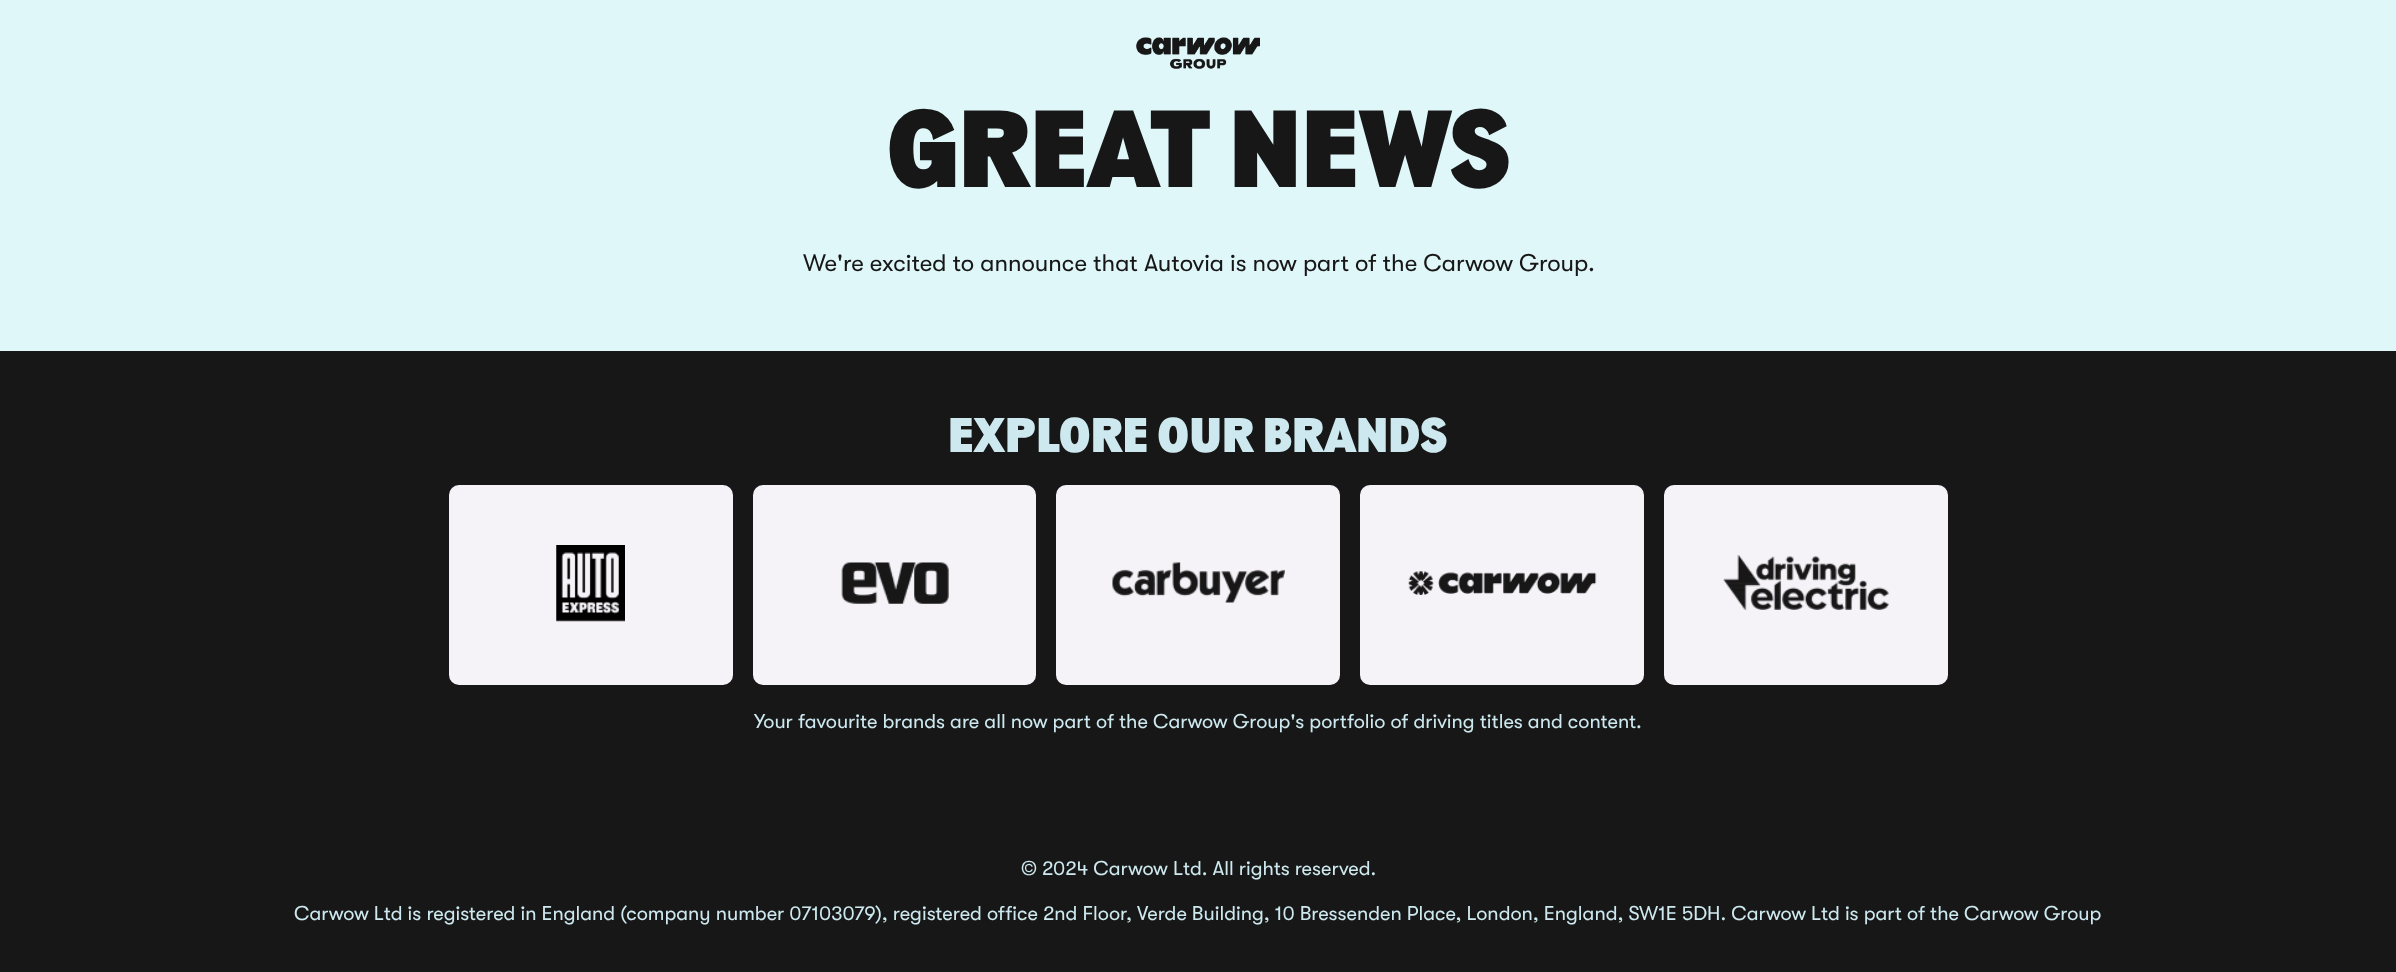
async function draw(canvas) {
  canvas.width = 2396;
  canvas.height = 972;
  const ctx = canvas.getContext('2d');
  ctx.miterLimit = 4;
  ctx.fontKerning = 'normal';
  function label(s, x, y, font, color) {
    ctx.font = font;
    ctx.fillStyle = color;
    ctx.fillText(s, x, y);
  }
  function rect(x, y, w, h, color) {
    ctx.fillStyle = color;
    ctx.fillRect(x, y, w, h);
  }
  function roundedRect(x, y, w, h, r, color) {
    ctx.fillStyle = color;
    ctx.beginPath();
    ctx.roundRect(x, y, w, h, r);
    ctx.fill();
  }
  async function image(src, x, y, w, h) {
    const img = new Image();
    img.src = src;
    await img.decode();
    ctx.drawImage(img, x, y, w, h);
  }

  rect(0, 0, 2396, 972, '#171717');
  rect(0, 0, 2396, 351, '#e0f7fa');
  await image('assets/img1.png', 1136, 37, 124, 32);
  label('GREAT NEWS', 886, 187, '900 112.5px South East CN', '#171717');
  label('We\'re excited to announce that Autovia is now part of the Carwow Group.', 803, 271, '24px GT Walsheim', '#171717');
  label('EXPLORE OUR BRANDS', 948, 452, '900 50px South East CN', '#cde9ef');
  roundedRect(449, 485, 284, 200, 10, '#f5f2f8');
  await image('assets/img2.png', 556, 545, 69, 77);
  roundedRect(753, 485, 283, 200, 10, '#f5f2f8');
  await image('assets/img3.png', 841, 562, 108, 42);
  roundedRect(1056, 485, 284, 200, 10, '#f5f2f8');
  await image('assets/img4.png', 1112, 562, 173, 41);
  roundedRect(1360, 485, 284, 200, 10, '#f5f2f8');
  await image('assets/img5.png', 1408, 571, 189, 24);
  roundedRect(1664, 485, 284, 200, 10, '#f5f2f8');
  await image('assets/img6.png', 1723, 555, 166, 55);
  label('Your favourite brands are all now part of the Carwow Group\'s portfolio of driving titles and content.', 754, 728, '20px GT Walsheim', '#cde9ef');
  label('© 2024 Carwow Ltd. All rights reserved.', 1021, 875, '20px GT Walsheim', '#cde9ef');
  label('Carwow Ltd is registered in England (company number 07103079), registered office 2nd Floor, Verde Building, 10 Bressenden Place, London, England, SW1E 5DH. Carwow Ltd is part of the Carwow Group', 294, 920, '20px GT Walsheim', '#cde9ef');
}

draw(document.querySelector('canvas'));
